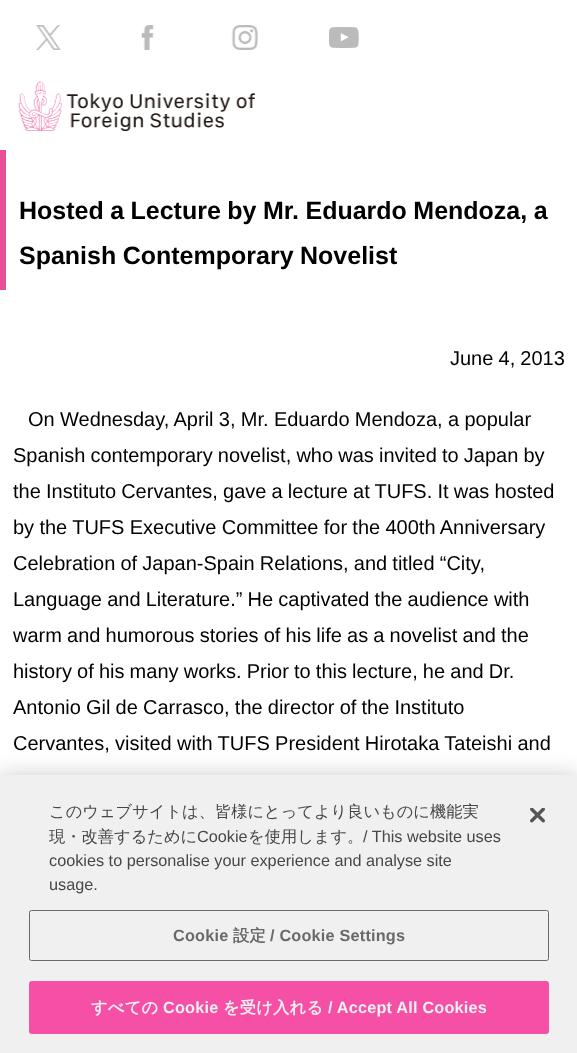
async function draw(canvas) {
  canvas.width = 577;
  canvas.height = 1053;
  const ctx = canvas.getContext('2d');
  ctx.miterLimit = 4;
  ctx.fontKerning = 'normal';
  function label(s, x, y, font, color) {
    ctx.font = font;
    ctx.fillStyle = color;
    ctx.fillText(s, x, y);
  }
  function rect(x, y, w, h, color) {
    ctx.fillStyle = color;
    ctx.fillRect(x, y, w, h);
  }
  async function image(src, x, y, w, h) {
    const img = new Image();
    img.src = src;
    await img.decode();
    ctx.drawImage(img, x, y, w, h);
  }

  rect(0, 0, 577, 1053, '#fff');
  await image('assets/img1.png', 35, 25, 26, 25);
  await image('assets/img2.png', 141, 25, 13, 25);
  await image('assets/img3.png', 231, 25, 27, 25);
  await image('assets/img4.png', 329, 27, 30, 21);
  await image('assets/img5.png', 18, 81, 237, 50);
  rect(0, 150, 6, 140, '#e85197');
  ctx.wordSpacing = '-0.5px';
  label('Hosted a Lecture by Mr. Eduardo Mendoza, a', 19, 219, 'bold 25px Liberation Sans', '#000');
  label('Spanish Contemporary Novelist', 19, 264, 'bold 25px Liberation Sans', '#000');
  ctx.wordSpacing = '-0.4px';
  label('June 4, 2013', 450, 365, '20px Liberation Sans', '#000');
  ctx.wordSpacing = '-0.25px';
  label('On Wednesday, April 3, Mr. Eduardo Mendoza, a popular', 28, 426, '20px Liberation Sans', '#000');
  ctx.wordSpacing = '-0.4px';
  label('Spanish contemporary novelist, who was invited to Japan by', 13, 462, '20px Liberation Sans', '#000');
  label('the Instituto Cervantes, gave a lecture at TUFS. It was hosted', 13, 498, '20px Liberation Sans', '#000');
  ctx.wordSpacing = '-0.25px';
  label('by the TUFS Executive Committee for the 400th Anniversary', 13, 534, '20px Liberation Sans', '#000');
  ctx.wordSpacing = '-0.4px';
  label('Celebration of Japan-Spain Relations, and titled “City,', 13, 570, '20px Liberation Sans', '#000');
  label('Language and Literature.” He captivated the audience with', 13, 606, '20px Liberation Sans', '#000');
  label('warm and humorous stories of his life as a novelist and the', 13, 642, '20px Liberation Sans', '#000');
  label('history of his many works. Prior to this lecture, he and Dr.', 13, 678, '20px Liberation Sans', '#000');
  label('Antonio Gil de Carrasco, the director of the Instituto', 13, 714, '20px Liberation Sans', '#000');
  ctx.wordSpacing = '-0.25px';
  label('Cervantes, visited with TUFS President Hirotaka Tateishi and', 13, 750, '20px Liberation Sans', '#000');
  ctx.fillStyle = '#00000033';
  ctx.filter = 'blur(11px)';
  ctx.beginPath();
  ctx.rect(0, 775, 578, 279);
  ctx.fill();
  ctx.filter = 'none';
  rect(0, 775, 577, 278, '#f0f0f0');
  ctx.wordSpacing = '0px';
  label('このウェブサイトは、皆様にとってより良いものに機能実', 49, 817, '500 16.25px WenQuanYi Zen Hei', '#474747');
  label('現・改善するために', 49, 842, '500 16.25px WenQuanYi Zen Hei', '#474747');
  label('Cookie', 197, 842, '16.25px Liberation Sans', '#474747');
  label('を使用します。', 248, 842, '500 16.25px WenQuanYi Zen Hei', '#474747');
  label('/ This website uses', 363, 842, '16.25px Liberation Sans', '#474747');
  label('cookies to personalise your experience and analyse site', 49, 866, '16.25px Liberation Sans', '#474747');
  label('usage.', 49, 890, '16.25px Liberation Sans', '#474747');
  ctx.beginPath();
  ctx.roundRect(29.5, 910.5, 519, 50, 2);
  ctx.strokeStyle = '#696969';
  ctx.stroke();
  ctx.letterSpacing = '0.2px';
  label('Cookie', 173, 941, 'bold 16.25px Liberation Sans', '#696969');
  label('設定', 233, 941, 'bold 16.25px WenQuanYi Zen Hei', '#696969');
  label('/ Cookie Settings', 270, 941, 'bold 16.25px Liberation Sans', '#696969');
  ctx.fillStyle = '#f550a6';
  ctx.beginPath();
  ctx.roundRect(29.5, 981.5, 519, 52, 2);
  ctx.fill();
  ctx.strokeStyle = '#f550a6';
  ctx.stroke();
  label('すべての', 91, 1013, 'bold 16.25px WenQuanYi Zen Hei', '#f0f0f0');
  label('Cookie', 163, 1013, 'bold 16.25px Liberation Sans', '#f0f0f0');
  label('を受け入れる', 223, 1013, 'bold 16.25px WenQuanYi Zen Hei', '#f0f0f0');
  label('/ Accept All Cookies', 328, 1013, 'bold 16.25px Liberation Sans', '#f0f0f0');
  await image('assets/img6.png', 530, 808, 15, 15);
}

draw(document.querySelector('canvas'));
